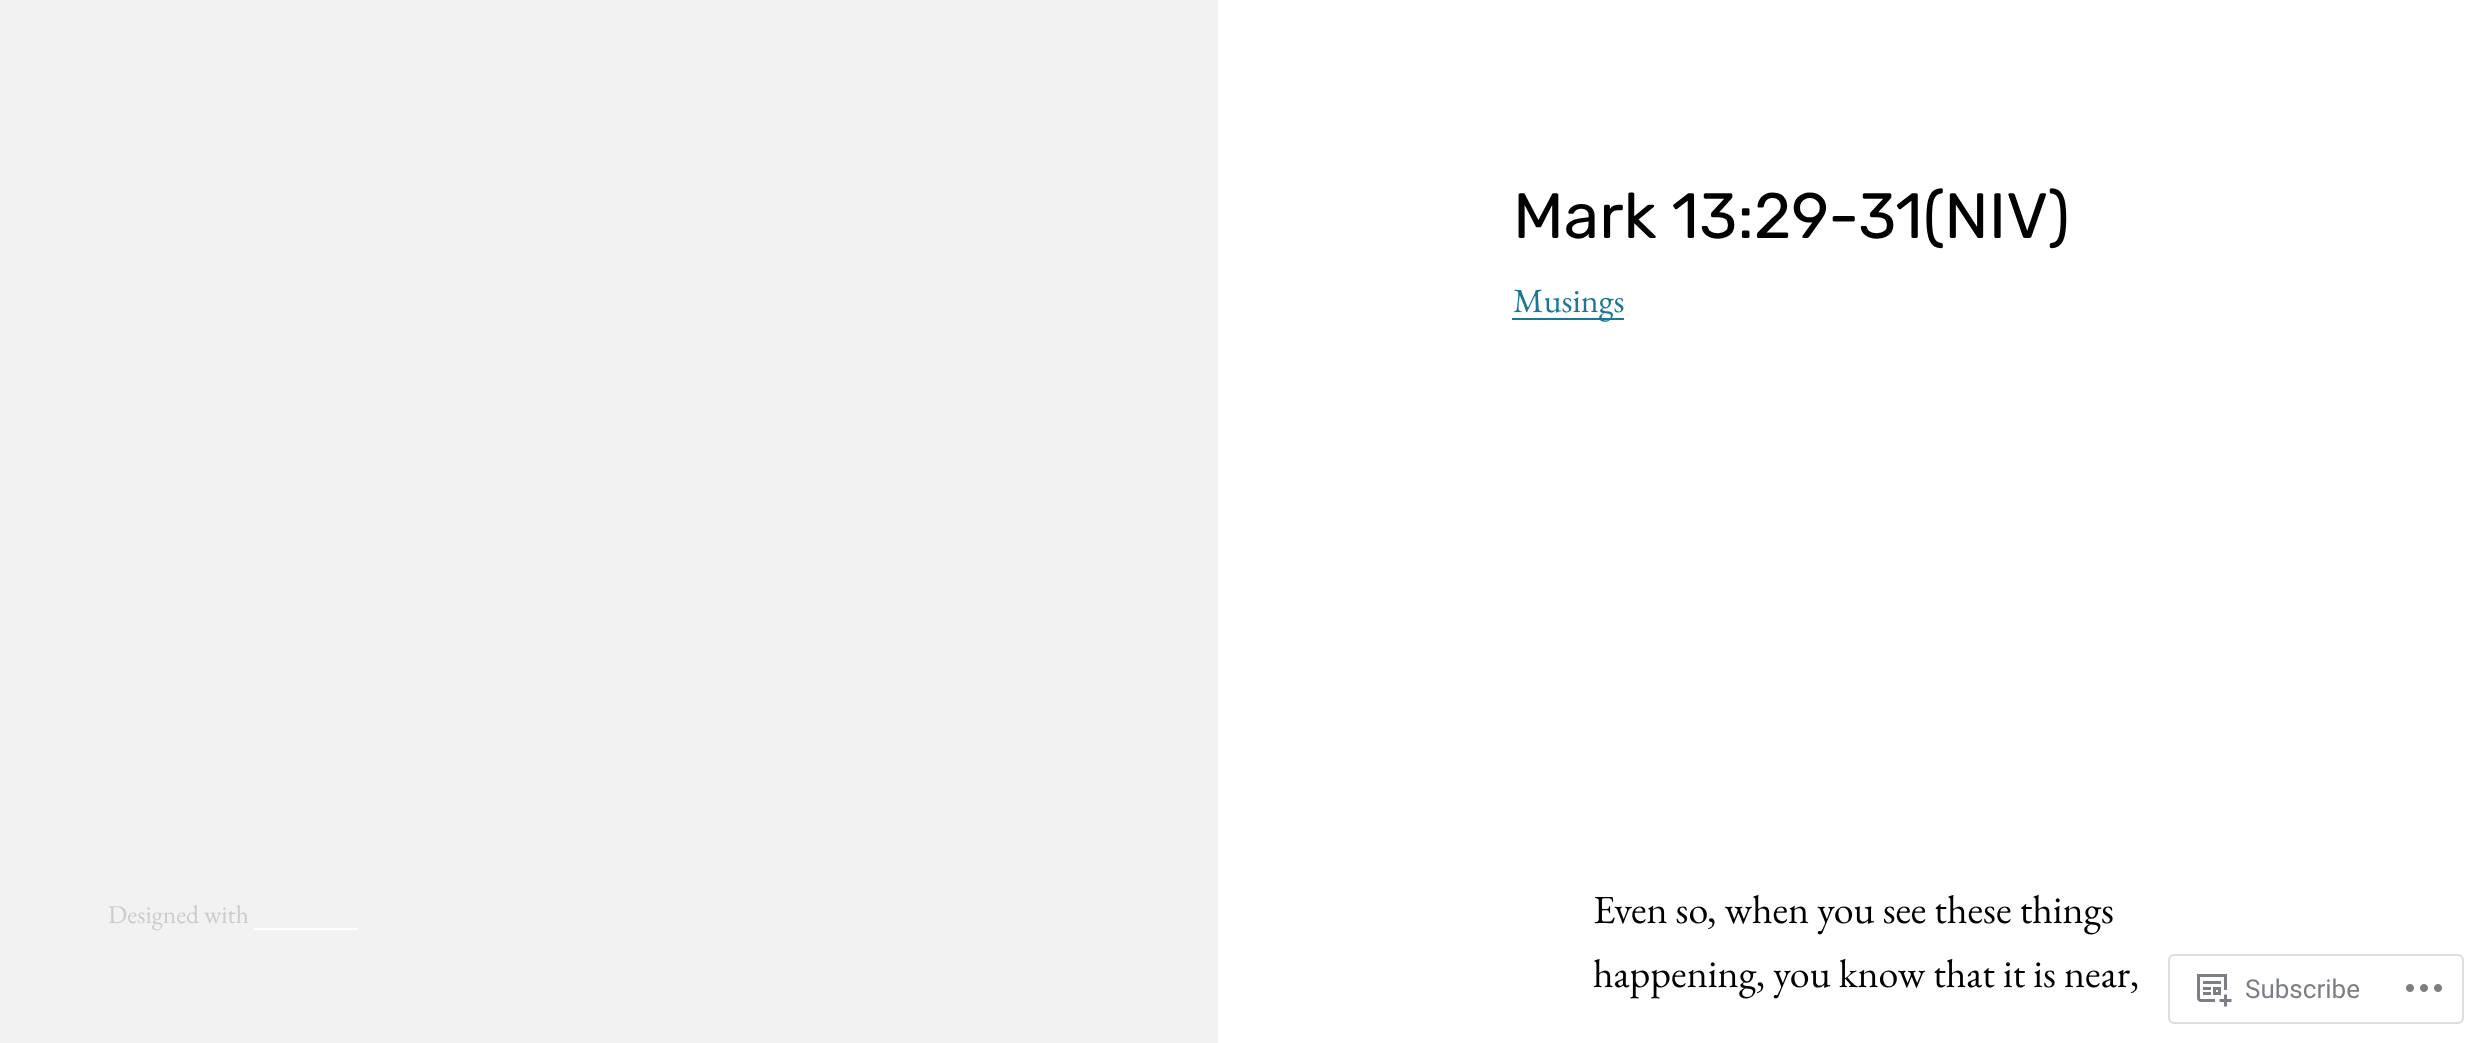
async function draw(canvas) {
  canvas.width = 2484;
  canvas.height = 1043;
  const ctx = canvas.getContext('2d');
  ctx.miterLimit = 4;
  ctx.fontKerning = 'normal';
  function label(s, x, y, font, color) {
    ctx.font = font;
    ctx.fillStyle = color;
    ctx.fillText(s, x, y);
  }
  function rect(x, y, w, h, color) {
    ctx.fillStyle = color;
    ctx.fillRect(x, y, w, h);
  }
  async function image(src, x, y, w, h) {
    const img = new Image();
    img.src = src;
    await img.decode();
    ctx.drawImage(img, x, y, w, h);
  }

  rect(0, 0, 2484, 1043, '#fff');
  rect(0, 0, 1218, 1043, '#f2f2f2');
  label('Designed with', 108, 923, '25.5px EB Garamond', '#cbcbcb');
  rect(254, 928, 104, 2, '#fff');
  label('Mark 13:29-31(NIV)', 1513, 238, '64px Rubik', '#000');
  rect(1512, 318, 112, 2, '#1a7895');
  label('Musings', 1513, 312, '34px EB Garamond', '#1a7895');
  label('Even so, when you see these things', 1593, 923, '40px EB Garamond', '#000');
  label('happening, you know that it is near,', 1593, 987, '40px EB Garamond', '#000');
  ctx.beginPath();
  ctx.roundRect(2169, 955, 294, 68, 5);
  ctx.strokeStyle = '#dddddf';
  ctx.lineWidth = 2;
  ctx.stroke();
  await image('assets/img1.png', 2197, 974, 35, 33);
  label('Subscribe', 2245, 998, '26px Roboto', '#7b7f85');
  await image('assets/img2.png', 2406, 984, 36, 8);
}

draw(document.querySelector('canvas'));
